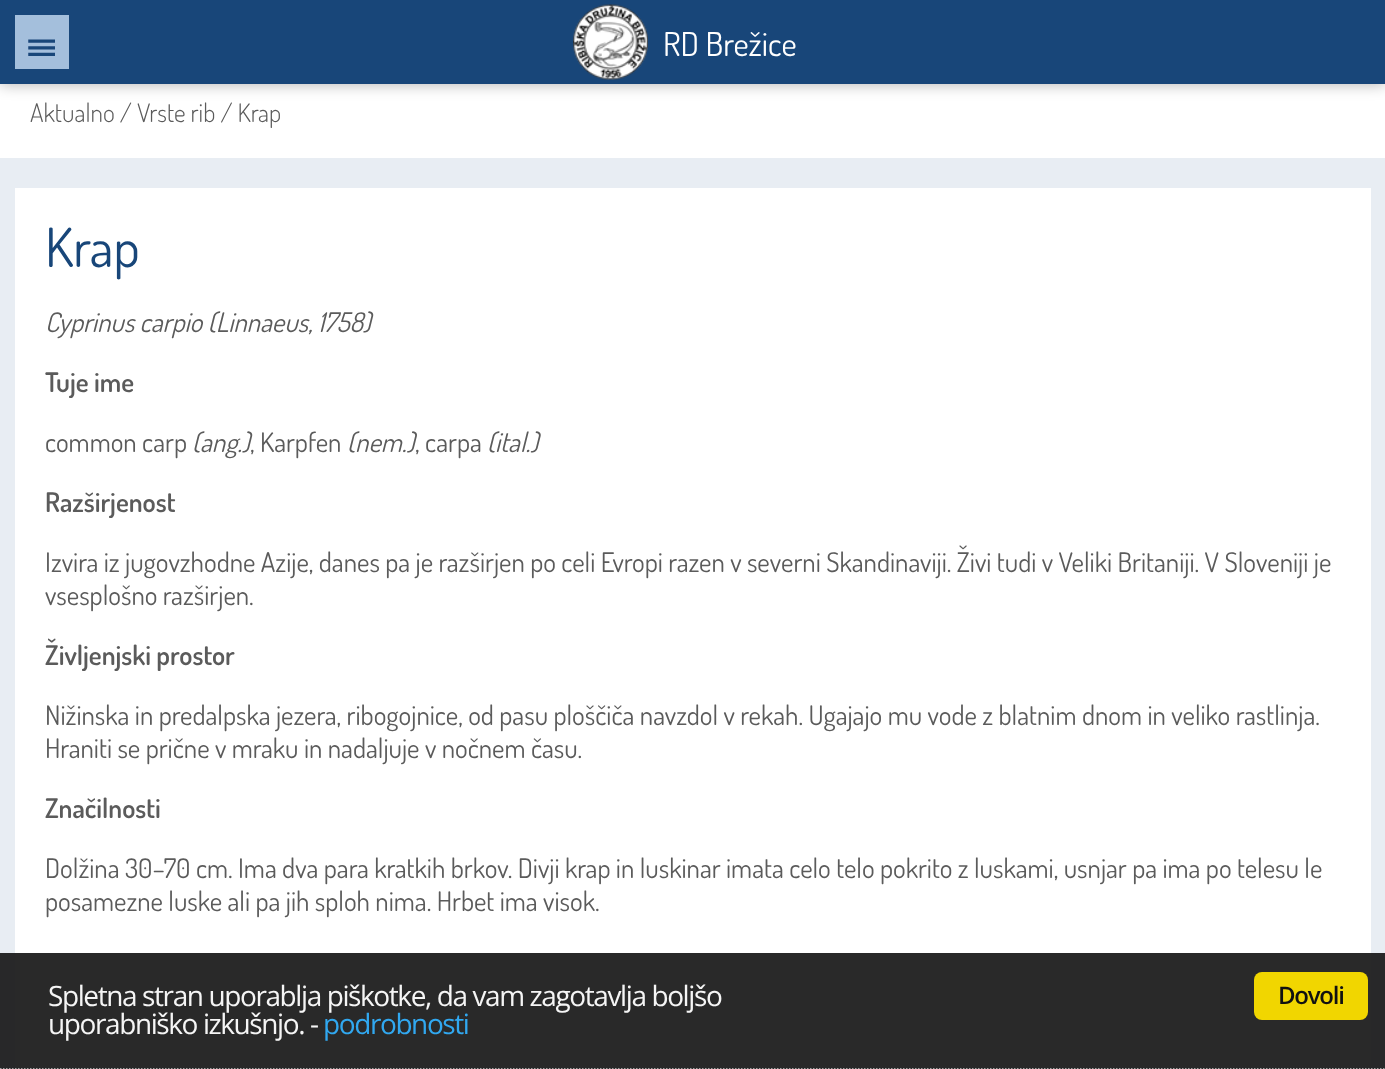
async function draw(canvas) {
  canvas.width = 1385;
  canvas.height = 1069;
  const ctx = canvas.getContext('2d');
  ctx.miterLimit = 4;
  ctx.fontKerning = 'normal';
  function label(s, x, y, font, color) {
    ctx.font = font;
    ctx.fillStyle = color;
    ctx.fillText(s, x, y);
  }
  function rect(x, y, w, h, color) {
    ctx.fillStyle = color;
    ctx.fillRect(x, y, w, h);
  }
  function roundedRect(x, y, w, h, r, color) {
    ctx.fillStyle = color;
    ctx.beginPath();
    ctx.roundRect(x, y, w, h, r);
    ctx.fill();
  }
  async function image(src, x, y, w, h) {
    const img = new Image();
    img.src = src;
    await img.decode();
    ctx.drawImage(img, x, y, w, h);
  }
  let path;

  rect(0, 0, 1385, 1069, '#e8edf3');
  rect(0, 84, 1385, 74, '#fff');
  ctx.fillStyle = '#0000004f';
  ctx.filter = 'blur(7.5px)';
  ctx.beginPath();
  ctx.rect(0, 0, 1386, 84);
  ctx.fill();
  ctx.filter = 'none';
  rect(0, 0, 1385, 84, '#184679');
  rect(15, 15, 54, 54, '#a4bfdc');
  label('☰', 27, 56, '39px FreeSerif', '#184679');
  await image('assets/img1.png', 573, 4, 75, 76);
  label('RD Brežice', 663, 56, '33px Dosis', '#fff');
  label('Aktualno / Vrste rib / Krap', 30, 122, '300 25.5px Dosis', '#5b5b5b');
  rect(15, 188, 1356, 881, '#fff');
  label('Krap', 45, 267, '54px Dosis', '#184679');
  label('Cyprinus carpio (Linnaeus, 1758)', 45, 332, 'italic 27px Dosis', '#5b5b5b');
  label('Tuje ime', 45, 392, '600 27px Dosis', '#5b5b5b');
  label('common carp', 45, 452, '27px Dosis', '#5b5b5b');
  label('(ang.)', 192, 452, 'italic 27px Dosis', '#5b5b5b');
  label(', Karpfen', 250, 452, '27px Dosis', '#5b5b5b');
  label('(nem.)', 347, 452, 'italic 27px Dosis', '#5b5b5b');
  label(', carpa', 415, 452, '27px Dosis', '#5b5b5b');
  label('(ital.)', 487, 452, 'italic 27px Dosis', '#5b5b5b');
  label('Razširjenost', 45, 512, '600 27px Dosis', '#5b5b5b');
  label('Izvira iz jugovzhodne Azije, danes pa je razširjen po celi Evropi razen v severni Skandinaviji. Živi tudi v Veliki Britaniji. V Sloveniji je', 45, 572, '27px Dosis', '#5b5b5b');
  label('vsesplošno razširjen.', 45, 605, '27px Dosis', '#5b5b5b');
  label('Življenjski prostor', 45, 665, '600 27px Dosis', '#5b5b5b');
  label('Nižinska in predalpska jezera, ribogojnice, od pasu ploščiča navzdol v rekah. Ugajajo mu vode z blatnim dnom in veliko rastlinja.', 45, 725, '27px Dosis', '#5b5b5b');
  label('Hraniti se prične v mraku in nadaljuje v nočnem času.', 45, 758, '27px Dosis', '#5b5b5b');
  label('Značilnosti', 45, 818, '600 27px Dosis', '#5b5b5b');
  label('Dolžina 30–70 cm. Ima dva para kratkih brkov. Divji krap in luskinar imata celo telo pokrito z luskami, usnjar pa ima po telesu le', 45, 878, '27px Dosis', '#5b5b5b');
  label('posamezne luske ali pa jih sploh nima. Hrbet ima visok.', 45, 911, '27px Dosis', '#5b5b5b');
  rect(0, 953, 1385, 116, '#1d1d1df2');
  path = new Path2D('M0 1069H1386');
  ctx.strokeStyle = '#ccc';
  ctx.lineWidth = 1.5;
  ctx.setLineDash([1.5, 1.5]);
  ctx.stroke(path);
  ctx.letterSpacing = '-1.4px';
  label('Spletna stran uporablja piškotke, da vam zagotavlja boljšo', 48, 1006, '28px Open Sans', '#f5f5f5');
  label('uporabniško izkušnjo. -', 48, 1034, '28px Open Sans', '#f5f5f5');
  label('podrobnosti', 323, 1034, '28px Open Sans', '#31a8f0');
  roundedRect(1254, 972, 114, 48, 8, '#f1d600');
  ctx.letterSpacing = '-1.25px';
  label('Dovoli', 1278, 1004, '600 24px Open Sans', '#111');
}

draw(document.querySelector('canvas'));
